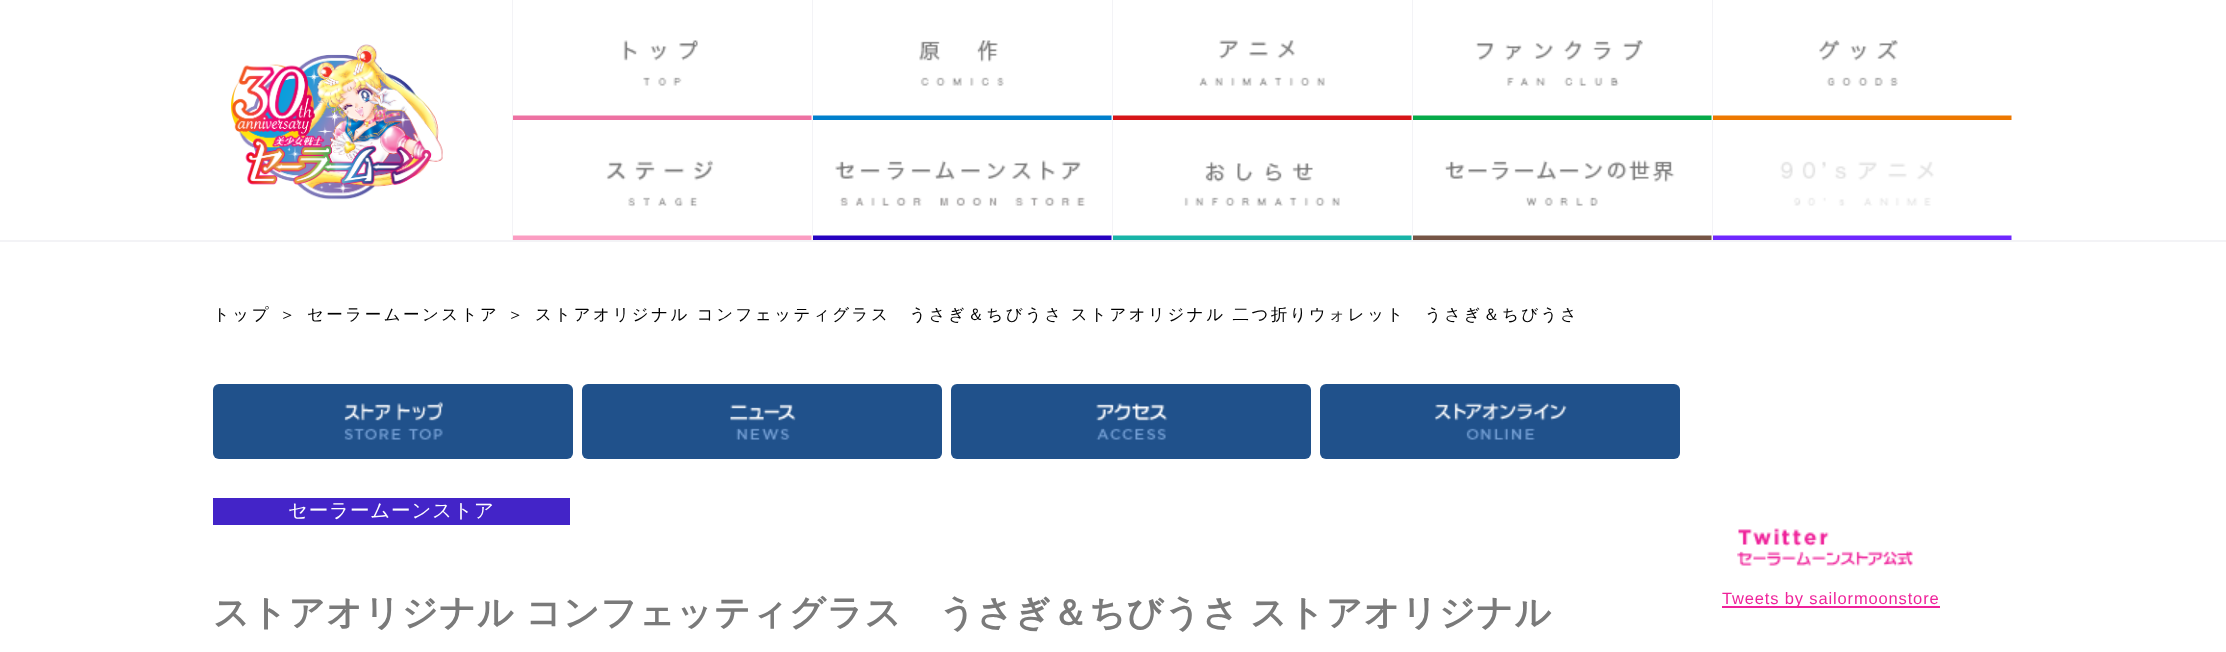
async function draw(canvas) {
  canvas.width = 2226;
  canvas.height = 652;
  const ctx = canvas.getContext('2d');
  ctx.miterLimit = 4;
  ctx.fontKerning = 'normal';
  function label(s, x, y, font, color) {
    ctx.font = font;
    ctx.fillStyle = color;
    ctx.fillText(s, x, y);
  }
  function rect(x, y, w, h, color) {
    ctx.fillStyle = color;
    ctx.fillRect(x, y, w, h);
  }
  function roundedRect(x, y, w, h, r, color) {
    ctx.fillStyle = color;
    ctx.beginPath();
    ctx.roundRect(x, y, w, h, r);
    ctx.fill();
  }
  async function image(src, x, y, w, h) {
    const img = new Image();
    img.src = src;
    await img.decode();
    ctx.drawImage(img, x, y, w, h);
  }

  rect(0, 0, 2226, 652, '#fff');
  rect(0, 240, 2226, 2, '#f3f3f6');
  rect(512, 0, 1, 240, '#f3f3f6');
  await image('assets/img1.png', 513, 0, 299, 120);
  rect(812, 0, 1, 240, '#f3f3f6');
  await image('assets/img2.png', 813, 0, 299, 120);
  rect(1112, 0, 1, 240, '#f3f3f6');
  await image('assets/img3.png', 1113, 0, 299, 120);
  rect(1412, 0, 1, 240, '#f3f3f6');
  await image('assets/img4.png', 1413, 0, 299, 120);
  rect(1712, 0, 1, 240, '#f3f3f6');
  await image('assets/img5.png', 1713, 0, 299, 120);
  await image('assets/img6.png', 513, 120, 299, 120);
  await image('assets/img7.png', 813, 120, 299, 120);
  await image('assets/img8.png', 1113, 120, 299, 120);
  await image('assets/img9.png', 1413, 120, 299, 120);
  await image('assets/img10.png', 1713, 120, 299, 120);
  await image('assets/img11.png', 231, 44, 212, 156);
  ctx.letterSpacing = '2.47px';
  label('トップ', 213, 320, '500 16.5px WenQuanYi Zen Hei', '#000');
  label('＞', 279, 320, '500 16.5px WenQuanYi Zen Hei', '#000');
  label('セーラームーンストア', 307, 320, '500 16.5px WenQuanYi Zen Hei', '#000');
  label('＞', 507, 320, '500 16.5px WenQuanYi Zen Hei', '#000');
  ctx.wordSpacing = '-0.5px';
  label('ストアオリジナル コンフェッティグラス　うさぎ＆ちびうさ ストアオリジナル 二つ折りウォレット　うさぎ＆ちびうさ', 535, 320, '500 16.5px WenQuanYi Zen Hei', '#000');
  roundedRect(213, 384, 360, 75, 6, '#20518b');
  await image('assets/img12.png', 344, 401, 99, 39);
  roundedRect(582, 384, 360, 75, 6, '#20518b');
  await image('assets/img13.png', 730, 404, 66, 36);
  roundedRect(951, 384, 360, 75, 6, '#20518b');
  await image('assets/img14.png', 1096, 403, 72, 37);
  roundedRect(1320, 384, 360, 75, 6, '#20518b');
  await image('assets/img15.png', 1434, 403, 133, 37);
  rect(213, 498, 357, 27, '#4324c8');
  ctx.letterSpacing = '0.85px';
  ctx.wordSpacing = '0px';
  label('セーラームーンストア', 288, 517, '500 19.5px WenQuanYi Zen Hei', '#fff');
  ctx.wordSpacing = '-1px';
  label('ストアオリジナル コンフェッティグラス　うさぎ＆ちびうさ ストアオリジナル', 213, 625, 'bold 36px WenQuanYi Zen Hei', '#7a7a7a');
  await image('assets/img16.png', 1737, 528, 176, 38);
  rect(1722, 606, 218, 2, '#ef229a');
  ctx.wordSpacing = '0px';
  label('Tweets by sailormoonstore', 1722, 604, '16.5px Liberation Sans', '#ef229a');
}

draw(document.querySelector('canvas'));
